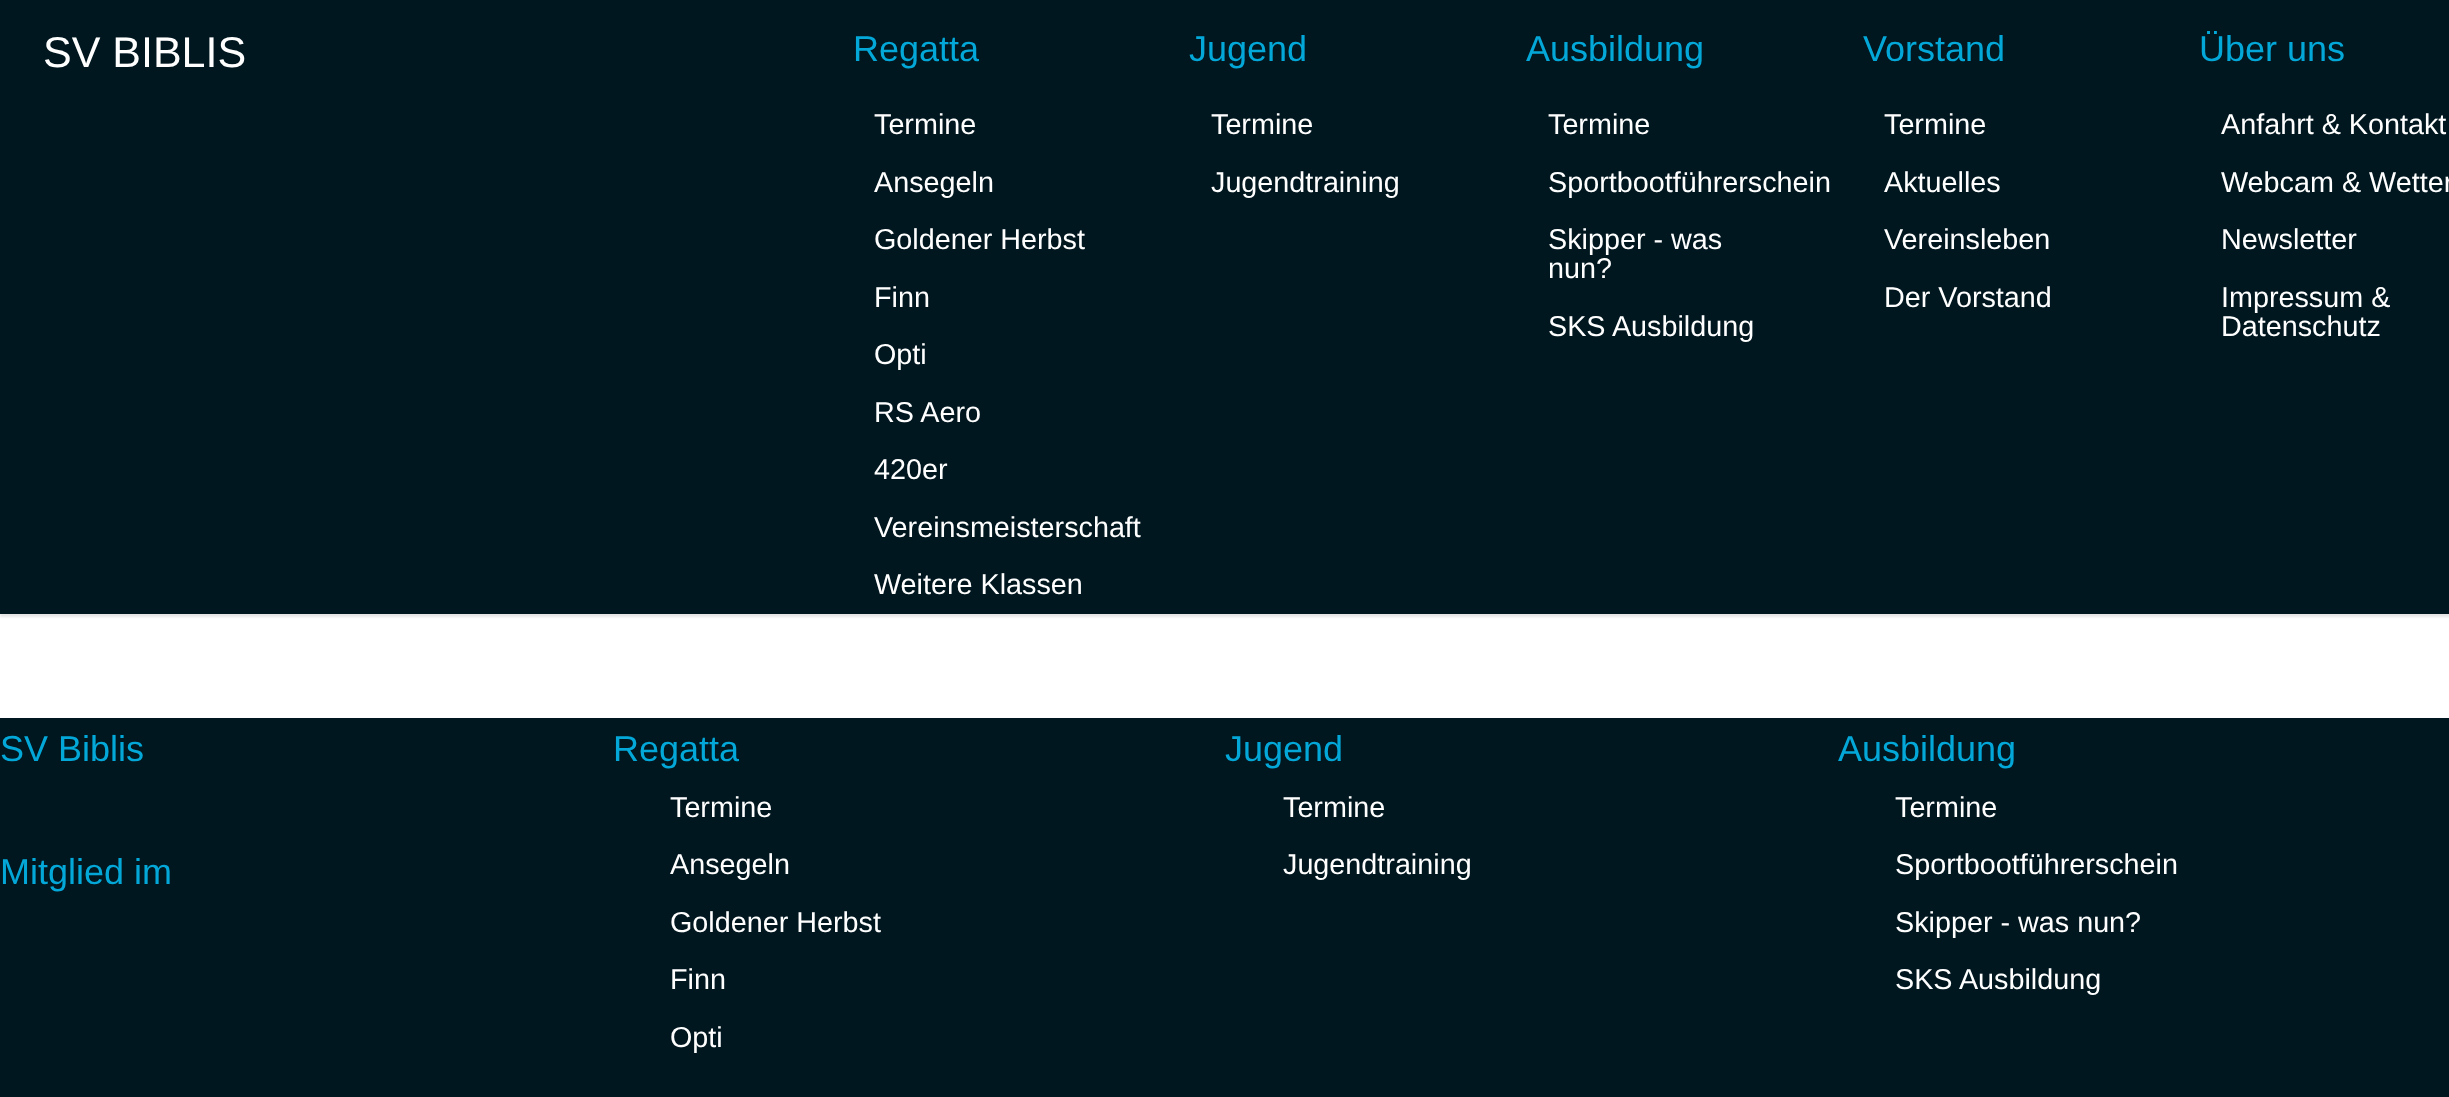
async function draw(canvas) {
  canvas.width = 2449;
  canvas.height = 1097;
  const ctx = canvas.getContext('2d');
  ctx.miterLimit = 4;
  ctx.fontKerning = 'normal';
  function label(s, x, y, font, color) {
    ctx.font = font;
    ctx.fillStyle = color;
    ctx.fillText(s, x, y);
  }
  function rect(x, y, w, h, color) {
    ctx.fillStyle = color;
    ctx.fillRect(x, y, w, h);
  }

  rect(0, 0, 2449, 1097, '#fff');
  ctx.fillStyle = '#0000001a';
  ctx.filter = 'blur(1px)';
  ctx.beginPath();
  ctx.rect(0, 2, 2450, 615);
  ctx.fill();
  ctx.filter = 'none';
  rect(0, 0, 2449, 614, '#00171f');
  label('SV BIBLIS', 43, 67, '43px Liberation Sans', '#fff');
  label('Regatta', 853, 61, '36px Liberation Sans', '#03a8d9');
  label('Termine', 874, 134, '28.75px Liberation Sans', '#fff');
  label('Ansegeln', 874, 192, '28.75px Liberation Sans', '#fff');
  label('Goldener Herbst', 874, 249, '28.75px Liberation Sans', '#fff');
  label('Finn', 874, 307, '28.75px Liberation Sans', '#fff');
  label('Opti', 874, 364, '28.75px Liberation Sans', '#fff');
  label('RS Aero', 874, 422, '28.75px Liberation Sans', '#fff');
  label('420er', 874, 479, '28.75px Liberation Sans', '#fff');
  label('Vereinsmeisterschaft', 874, 537, '28.75px Liberation Sans', '#fff');
  label('Weitere Klassen', 874, 594, '28.75px Liberation Sans', '#fff');
  label('Jugend', 1189, 61, '36px Liberation Sans', '#03a8d9');
  label('Termine', 1211, 134, '28.75px Liberation Sans', '#fff');
  label('Jugendtraining', 1211, 192, '28.75px Liberation Sans', '#fff');
  label('Ausbildung', 1526, 61, '36px Liberation Sans', '#03a8d9');
  label('Termine', 1548, 134, '28.75px Liberation Sans', '#fff');
  label('Sportbootführerschein', 1548, 192, '28.75px Liberation Sans', '#fff');
  label('Skipper - was', 1548, 249, '28.75px Liberation Sans', '#fff');
  label('nun?', 1548, 278, '28.75px Liberation Sans', '#fff');
  label('SKS Ausbildung', 1548, 336, '28.75px Liberation Sans', '#fff');
  label('Vorstand', 1863, 61, '36px Liberation Sans', '#03a8d9');
  label('Termine', 1884, 134, '28.75px Liberation Sans', '#fff');
  label('Aktuelles', 1884, 192, '28.75px Liberation Sans', '#fff');
  label('Vereinsleben', 1884, 249, '28.75px Liberation Sans', '#fff');
  label('Der Vorstand', 1884, 307, '28.75px Liberation Sans', '#fff');
  label('Über uns', 2199, 61, '36px Liberation Sans', '#03a8d9');
  label('Anfahrt & Kontakt', 2221, 134, '28.75px Liberation Sans', '#fff');
  label('Webcam & Wetter', 2221, 192, '28.75px Liberation Sans', '#fff');
  label('Newsletter', 2221, 249, '28.75px Liberation Sans', '#fff');
  label('Impressum &', 2221, 307, '28.75px Liberation Sans', '#fff');
  label('Datenschutz', 2221, 336, '28.75px Liberation Sans', '#fff');
  rect(0, 718, 2449, 379, '#00171f');
  label('SV Biblis', 0, 761, '36px Liberation Sans', '#03a8d9');
  label('Mitglied im', 0, 884, '36px Liberation Sans', '#03a8d9');
  label('Regatta', 613, 761, '36px Liberation Sans', '#03a8d9');
  label('Termine', 670, 817, '28.75px Liberation Sans', '#fff');
  label('Ansegeln', 670, 874, '28.75px Liberation Sans', '#fff');
  label('Goldener Herbst', 670, 932, '28.75px Liberation Sans', '#fff');
  label('Finn', 670, 989, '28.75px Liberation Sans', '#fff');
  label('Opti', 670, 1047, '28.75px Liberation Sans', '#fff');
  label('Jugend', 1225, 761, '36px Liberation Sans', '#03a8d9');
  label('Termine', 1283, 817, '28.75px Liberation Sans', '#fff');
  label('Jugendtraining', 1283, 874, '28.75px Liberation Sans', '#fff');
  label('Ausbildung', 1838, 761, '36px Liberation Sans', '#03a8d9');
  label('Termine', 1895, 817, '28.75px Liberation Sans', '#fff');
  label('Sportbootführerschein', 1895, 874, '28.75px Liberation Sans', '#fff');
  label('Skipper - was nun?', 1895, 932, '28.75px Liberation Sans', '#fff');
  label('SKS Ausbildung', 1895, 989, '28.75px Liberation Sans', '#fff');
}

draw(document.querySelector('canvas'));
